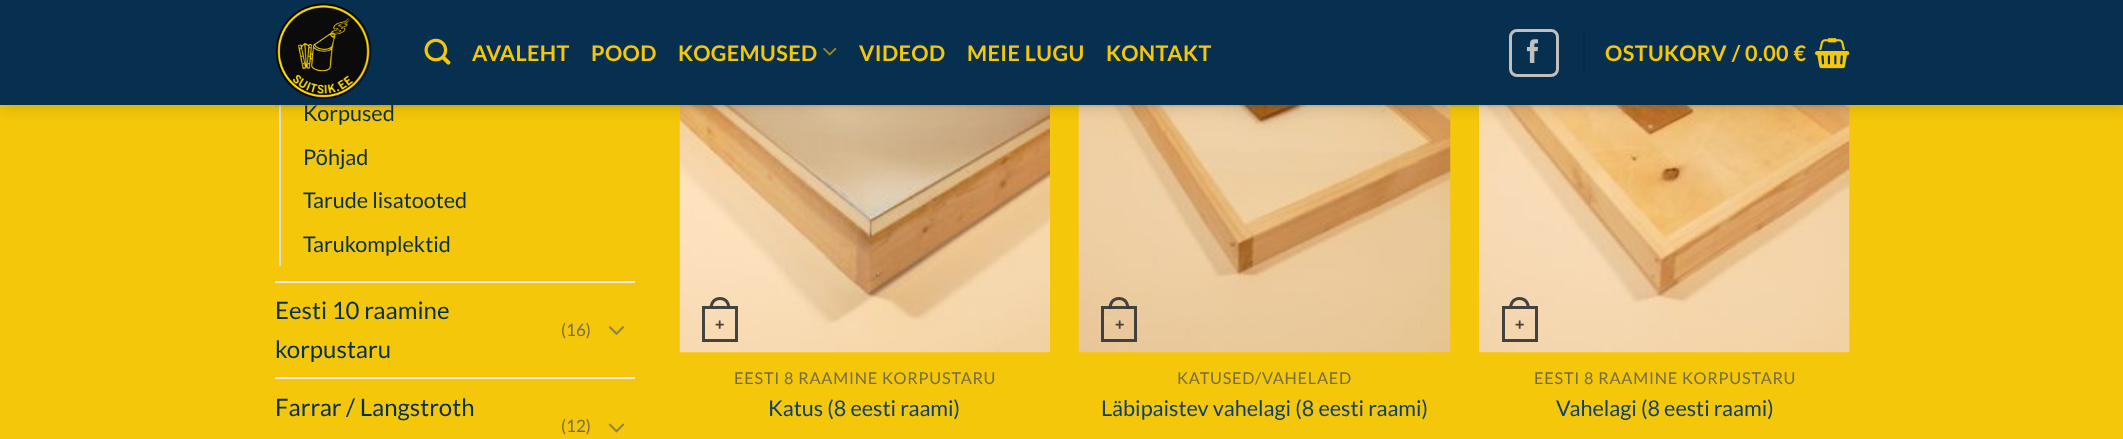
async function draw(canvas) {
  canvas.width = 2123;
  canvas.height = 439;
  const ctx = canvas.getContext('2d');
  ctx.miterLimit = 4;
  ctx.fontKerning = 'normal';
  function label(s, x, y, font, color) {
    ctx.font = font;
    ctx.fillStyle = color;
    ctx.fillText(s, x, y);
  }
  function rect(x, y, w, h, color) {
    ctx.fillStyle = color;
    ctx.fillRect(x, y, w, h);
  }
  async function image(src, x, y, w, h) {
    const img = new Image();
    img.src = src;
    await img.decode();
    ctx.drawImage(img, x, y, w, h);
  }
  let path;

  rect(0, 0, 2123, 439, '#f4c70b');
  rect(279, 105, 2, 161, '#ddd');
  await image('assets/img8.png', 679, 105, 371, 248);
  await image('assets/img9.png', 1078, 105, 373, 248);
  await image('assets/img10.png', 1479, 105, 371, 248);
  ctx.fillStyle = '#00000026';
  ctx.filter = 'blur(7.5px)';
  ctx.beginPath();
  ctx.rect(2, 2, 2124, 105);
  ctx.fill();
  ctx.filter = 'none';
  rect(0, 0, 2123, 105, '#072f4f');
  await image('assets/img1.png', 276, 3, 96, 96);
  await image('assets/img2.png', 424, 38, 27, 27);
  ctx.letterSpacing = '0.4px';
  label('AVALEHT', 472, 61, 'bold 21.6px Lato', '#f4c70b');
  label('POOD', 591, 61, 'bold 21.6px Lato', '#f4c70b');
  label('KOGEMUSED', 678, 61, 'bold 21.6px Lato', '#f4c70b');
  await image('assets/img3.png', 823, 47, 14, 9);
  label('VIDEOD', 859, 61, 'bold 21.6px Lato', '#f4c70b');
  label('MEIE LUGU', 967, 61, 'bold 21.6px Lato', '#f4c70b');
  label('KONTAKT', 1106, 61, 'bold 21.6px Lato', '#f4c70b');
  ctx.beginPath();
  ctx.roundRect(1510.5, 30.5, 47, 45, 6.5);
  ctx.strokeStyle = '#c0c0c0';
  ctx.lineWidth = 3;
  ctx.stroke();
  await image('assets/img4.png', 1526, 39, 12, 24);
  rect(1583, 30, 2, 45, '#062a47');
  label('OSTUKORV / 0.00 €', 1605, 61, 'bold 21.6px Lato', '#f4c70b');
  await image('assets/img5.png', 1815, 38, 35, 31);
  rect(275, 105, 1575, 2, '#5656561a');
  ctx.letterSpacing = '0px';
  label('Korpused', 303, 121, '21.6px Lato', '#072f4f');
  label('Põhjad', 303, 165, '21.6px Lato', '#072f4f');
  label('Tarude lisatooted', 303, 208, '21.6px Lato', '#072f4f');
  label('Tarukomplektid', 303, 252, '21.6px Lato', '#072f4f');
  rect(275, 281, 360, 2, '#ececec');
  label('Eesti 10 raamine', 275, 319, '24px Lato', '#072f4f');
  label('korpustaru', 275, 358, '24px Lato', '#072f4f');
  label('(16)', 561, 336, '17px Lato', '#766d47');
  await image('assets/img6.png', 608, 326, 17, 9);
  rect(275, 377, 360, 2, '#ececec');
  label('Farrar / Langstroth', 275, 416, '24px Lato', '#072f4f');
  label('(12)', 561, 432, '17px Lato', '#766d47');
  await image('assets/img7.png', 608, 423, 17, 10);
  ctx.strokeStyle = '#3a3a3af2';
  ctx.strokeRect(703.5, 307.5, 33, 33);
  ctx.fillStyle = '#444240';
  path = new Path2D('M720 297C727 297 730.5 302.5 730.5 309H709.5C709.5 302.5 713 297 720 297ZM720 300C725.5 300 727.5 304.5 727.5 309H712.5C712.5 304.5 714.5 300 720 300Z');
  ctx.fill(path, 'evenodd');
  label('+', 715, 330, 'bold 16px Liberation Sans', '#444240');
  ctx.letterSpacing = '0.8px';
  label('EESTI 8 RAAMINE KORPUSTARU', 734, 384, '16.25px Lato', '#766d47');
  ctx.letterSpacing = '0px';
  label('Katus (8 eesti raami)', 768, 416, '21.6px Lato', '#0f3f6f');
  ctx.strokeRect(1102.5, 307.5, 33, 33);
  ctx.fillStyle = '#3a3a3af2';
  path = new Path2D('M1119 297C1126 297 1129.5 302.5 1129.5 309H1108.5C1108.5 302.5 1112 297 1119 297ZM1119 300C1124.5 300 1126.5 304.5 1126.5 309H1111.5C1111.5 304.5 1113.5 300 1119 300Z');
  ctx.fill(path, 'evenodd');
  label('+', 1115, 330, 'bold 16px Liberation Sans', '#444240');
  ctx.letterSpacing = '0.8px';
  label('KATUSED/VAHELAED', 1177, 384, '16.25px Lato', '#766d47');
  ctx.letterSpacing = '0px';
  label('Läbipaistev vahelagi (8 eesti raami)', 1101, 416, '21.6px Lato', '#0f3f6f');
  ctx.strokeRect(1503.5, 307.5, 33, 33);
  ctx.fillStyle = '#434240';
  path = new Path2D('M1519.5 297C1526.5 297 1530 302.5 1530 309H1509C1509 302.5 1512.5 297 1519.5 297ZM1519.5 300C1525 300 1527 304.5 1527 309H1512C1512 304.5 1514 300 1519.5 300Z');
  ctx.fill(path, 'evenodd');
  label('+', 1515, 330, 'bold 16px Liberation Sans', '#444240');
  ctx.letterSpacing = '0.8px';
  label('EESTI 8 RAAMINE KORPUSTARU', 1534, 384, '16.25px Lato', '#766d47');
  ctx.letterSpacing = '0px';
  label('Vahelagi (8 eesti raami)', 1556, 416, '21.6px Lato', '#0f3f6f');
}

draw(document.querySelector('canvas'));
